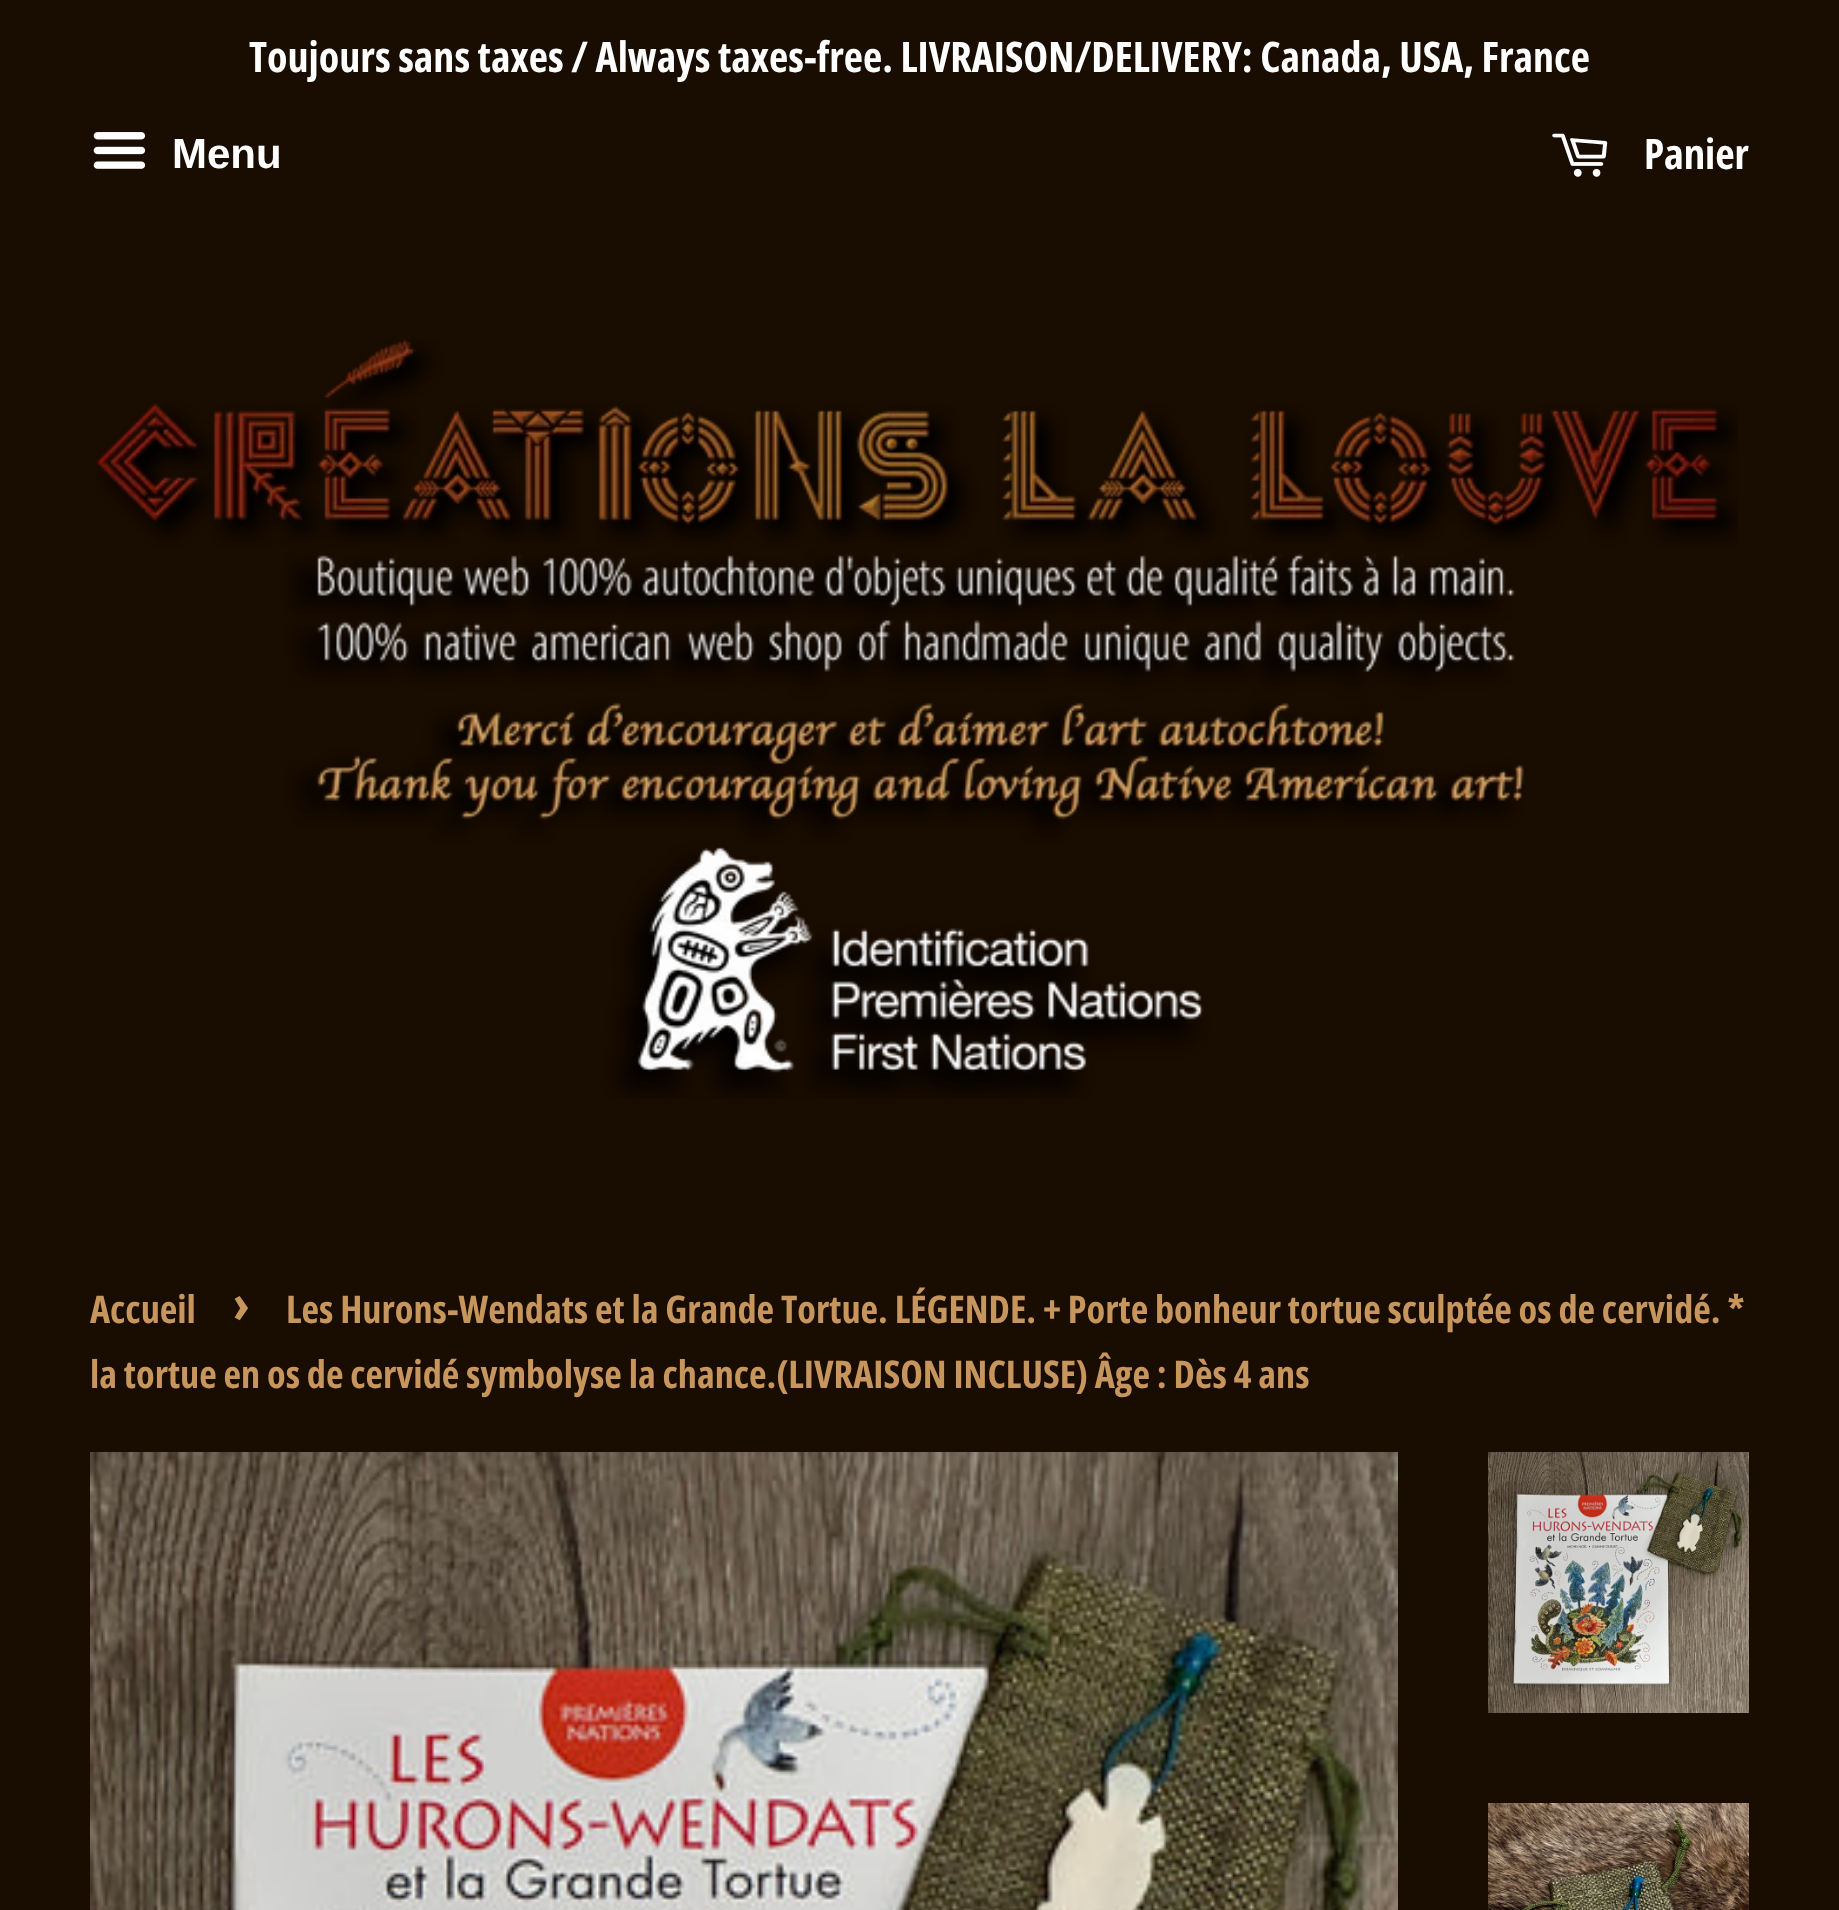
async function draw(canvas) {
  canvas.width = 1839;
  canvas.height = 1910;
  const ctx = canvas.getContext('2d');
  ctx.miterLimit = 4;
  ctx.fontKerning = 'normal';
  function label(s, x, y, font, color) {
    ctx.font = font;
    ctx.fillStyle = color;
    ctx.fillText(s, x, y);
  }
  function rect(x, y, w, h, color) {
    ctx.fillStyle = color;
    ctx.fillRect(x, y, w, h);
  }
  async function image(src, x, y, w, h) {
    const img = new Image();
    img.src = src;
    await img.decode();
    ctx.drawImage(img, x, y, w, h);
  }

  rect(0, 0, 1839, 1910, '#190c00');
  label('Toujours sans taxes / Always taxes-free. LIVRAISON/DELIVERY: Canada, USA, France', 249, 72, 'bold 42px "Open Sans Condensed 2"', '#fff');
  await image('assets/img1.png', 93, 132, 53, 37);
  label('Menu', 172, 168, 'bold 42px Liberation Sans', '#fff');
  await image('assets/img2.png', 1552, 133, 56, 44);
  label('Panier', 1644, 169, 'bold 42px Open Sans Condensed', '#fff');
  await image('assets/img3.png', 96, 339, 1642, 760);
  label('Accueil', 90, 1323, 'bold 38.25px "Open Sans Condensed 2"', '#c7965d');
  label('›', 233, 1323, 'bold 54px "Open Sans Condensed 2"', '#c7965d');
  label('Les Hurons-Wendats et la Grande Tortue. LÉGENDE. + Porte bonheur tortue sculptée os de cervidé. *', 286, 1323, 'bold 38.25px "Open Sans Condensed 2"', '#c7965d');
  label('la tortue en os de cervidé symbolyse la chance.(LIVRAISON INCLUSE) Âge : Dès 4 ans', 90, 1388, 'bold 38.25px "Open Sans Condensed 2"', '#c7965d');
  await image('assets/img4.png', 90, 1452, 1308, 458);
  await image('assets/img5.png', 1488, 1452, 261, 261);
  await image('assets/img6.png', 1488, 1803, 261, 107);
}

draw(document.querySelector('canvas'));
